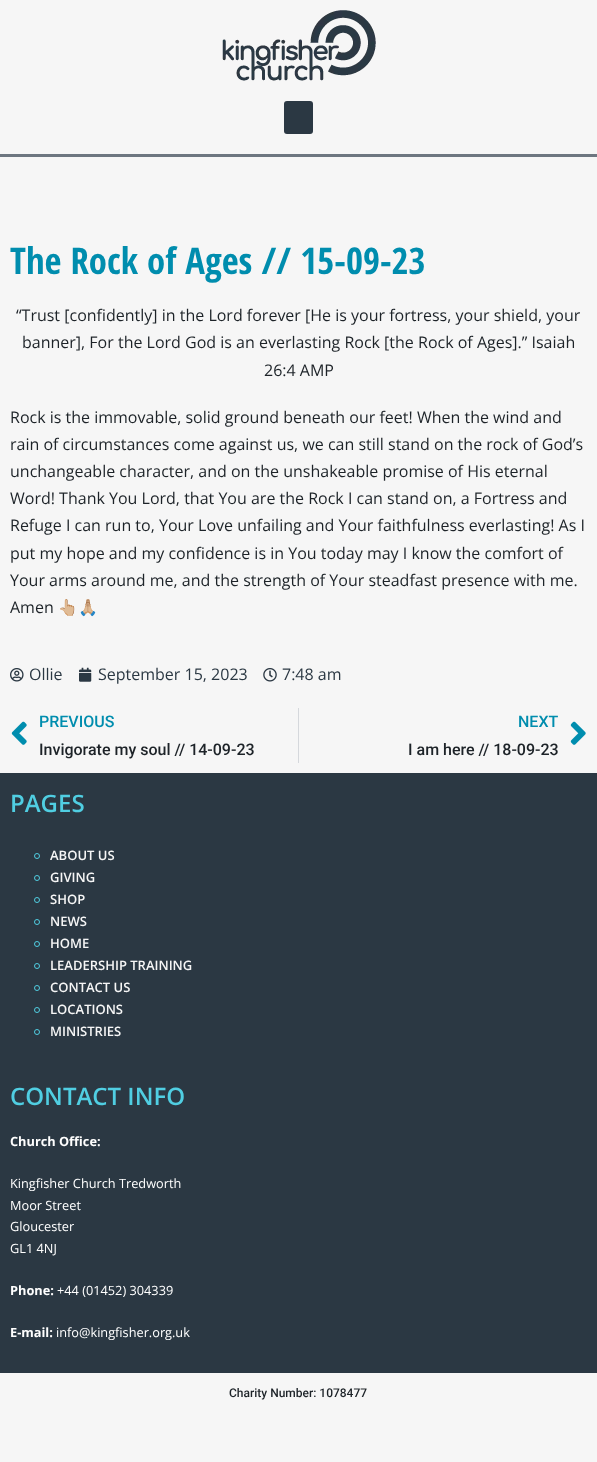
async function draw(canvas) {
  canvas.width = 597;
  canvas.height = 1462;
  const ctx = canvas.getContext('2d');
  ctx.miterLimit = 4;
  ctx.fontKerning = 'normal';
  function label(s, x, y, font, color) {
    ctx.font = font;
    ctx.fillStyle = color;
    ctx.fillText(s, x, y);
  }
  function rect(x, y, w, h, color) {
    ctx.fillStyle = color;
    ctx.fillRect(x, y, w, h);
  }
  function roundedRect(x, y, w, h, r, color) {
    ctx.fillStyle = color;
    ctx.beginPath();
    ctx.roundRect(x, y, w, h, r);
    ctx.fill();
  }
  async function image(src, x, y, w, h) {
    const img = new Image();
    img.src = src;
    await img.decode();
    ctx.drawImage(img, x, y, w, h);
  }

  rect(0, 0, 597, 1462, '#f6f6f6');
  rect(0, 154, 597, 3, '#6d7680');
  await image('assets/img1.png', 222, 10, 154, 71);
  roundedRect(284, 101, 29, 33, 3, '#2b3843');
  label('The Rock of Ages // 15-09-23', 10, 274, 'bold 36.75px Open Sans Condensed', '#008dae');
  label('“Trust [confidently] in the Lord forever [He is your fortress, your shield, your', 16, 321, '16px Open Sans', '#1d2328');
  label('banner], For the Lord God is an everlasting Rock [the Rock of Ages].” Isaiah', 22, 348, '16px Open Sans', '#1d2328');
  label('26:4 AMP', 264, 376, '16px Open Sans', '#1d2328');
  label('Rock is the immovable, solid ground beneath our feet! When the wind and', 10, 423, '16px Open Sans', '#1d2328');
  label('rain of circumstances come against us, we can still stand on the rock of God’s', 10, 450, '16px Open Sans', '#1d2328');
  label('unchangeable character, and on the unshakeable promise of His eternal', 10, 477, '16px Open Sans', '#1d2328');
  label('Word! Thank You Lord, that You are the Rock I can stand on, a Fortress and', 10, 504, '16px Open Sans', '#1d2328');
  label('Refuge I can run to, Your Love unfailing and Your faithfulness everlasting! As I', 10, 531, '16px Open Sans', '#1d2328');
  label('put my hope and my confidence is in You today may I know the comfort of', 10, 559, '16px Open Sans', '#1d2328');
  label('Your arms around me, and the strength of Your steadfast presence with me.', 10, 586, '16px Open Sans', '#1d2328');
  label('Amen', 10, 613, '16px Open Sans', '#1d2328');
  label('👆🏼🙏🏼', 58, 613, '16px Noto Color Emoji', '#1d2328');
  await image('assets/img2.png', 10, 668, 14, 14);
  label('Ollie', 29, 680, '16px Open Sans', '#2b3843');
  await image('assets/img3.png', 79, 667, 13, 15);
  label('September 15, 2023', 98, 680, '16px Open Sans', '#2b3843');
  await image('assets/img4.png', 263, 668, 14, 14);
  label('7:48 am', 282, 680, '16px Open Sans', '#2b3843');
  await image('assets/img5.png', 11, 721, 16, 24);
  label('PREVIOUS', 39, 727, '500 16px Roboto', '#008dae');
  label('Invigorate my soul // 14-09-23', 39, 755, '500 16px Roboto', '#1d2328');
  rect(298, 708, 1, 55, '#d5d8dc');
  label('NEXT', 518, 727, '500 16px Roboto', '#008dae');
  label('I am here // 18-09-23', 408, 755, '500 16px Roboto', '#1d2328');
  await image('assets/img6.png', 570, 721, 16, 24);
  rect(0, 773, 597, 600, '#2b3843');
  label('PAGES', 10, 812, '600 24px Open Sans', '#50cee2');
  ctx.beginPath();
  ctx.arc(37, 856, 2.5, 0, 2 * Math.PI);
  ctx.strokeStyle = '#50cee2';
  ctx.stroke();
  label('ABOUT US', 50, 860, '600 13px Open Sans', '#f6f6f6');
  ctx.beginPath();
  ctx.arc(37, 878, 2.5, 0, 2 * Math.PI);
  ctx.stroke();
  label('GIVING', 50, 882, '600 13px Open Sans', '#f6f6f6');
  ctx.beginPath();
  ctx.arc(37, 900, 2.5, 0, 2 * Math.PI);
  ctx.stroke();
  label('SHOP', 50, 904, '600 13px Open Sans', '#f6f6f6');
  ctx.beginPath();
  ctx.arc(37, 922, 2.5, 0, 2 * Math.PI);
  ctx.stroke();
  label('NEWS', 50, 926, '600 13px Open Sans', '#f6f6f6');
  ctx.beginPath();
  ctx.arc(37, 944, 2.5, 0, 2 * Math.PI);
  ctx.stroke();
  label('HOME', 50, 948, '600 13px Open Sans', '#f6f6f6');
  ctx.beginPath();
  ctx.arc(37, 966, 2.5, 0, 2 * Math.PI);
  ctx.stroke();
  label('LEADERSHIP TRAINING', 50, 970, '600 13px Open Sans', '#f6f6f6');
  ctx.beginPath();
  ctx.arc(37, 988, 2.5, 0, 2 * Math.PI);
  ctx.stroke();
  label('CONTACT US', 50, 992, '600 13px Open Sans', '#f6f6f6');
  ctx.beginPath();
  ctx.arc(37, 1010, 2.5, 0, 2 * Math.PI);
  ctx.stroke();
  label('LOCATIONS', 50, 1014, '600 13px Open Sans', '#f6f6f6');
  ctx.beginPath();
  ctx.arc(37, 1032, 2.5, 0, 2 * Math.PI);
  ctx.stroke();
  label('MINISTRIES', 50, 1036, '600 13px Open Sans', '#f6f6f6');
  label('CONTACT INFO', 10, 1105, '600 24px Open Sans', '#50cee2');
  label('Church Office:', 10, 1146, 'bold 12.75px Open Sans', '#fff');
  label('Kingfisher Church Tredworth', 10, 1188, '12.75px Open Sans', '#fff');
  label('Moor Street', 10, 1210, '12.75px Open Sans', '#fff');
  label('Gloucester', 10, 1231, '12.75px Open Sans', '#fff');
  label('GL1 4NJ', 10, 1253, '12.75px Open Sans', '#fff');
  label('Phone:', 10, 1295, 'bold 12.75px Open Sans', '#fff');
  label('+44 (01452) 304339', 57, 1295, '12.75px Open Sans', '#fff');
  label('E-mail:', 10, 1337, 'bold 12.75px Open Sans', '#fff');
  label('info@kingfisher.org.uk', 56, 1337, '12.75px Open Sans', '#fff');
  label('Charity Number: 1078477', 229, 1397, '500 12px Roboto', '#1d2328');
}

draw(document.querySelector('canvas'));
